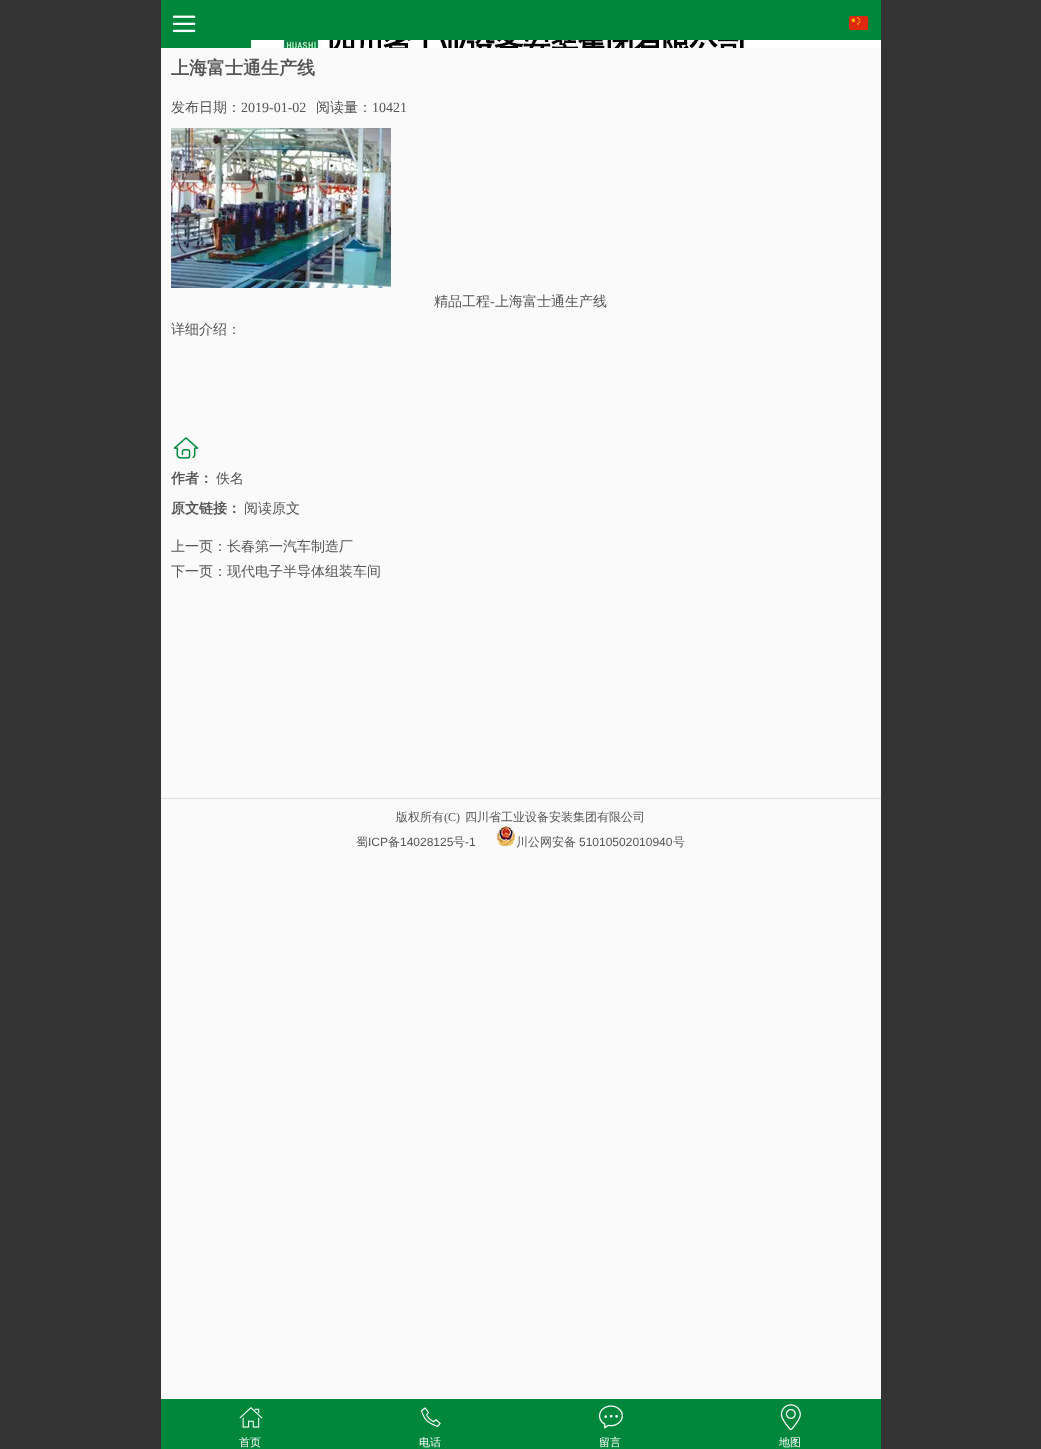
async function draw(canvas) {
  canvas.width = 1041;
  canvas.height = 1449;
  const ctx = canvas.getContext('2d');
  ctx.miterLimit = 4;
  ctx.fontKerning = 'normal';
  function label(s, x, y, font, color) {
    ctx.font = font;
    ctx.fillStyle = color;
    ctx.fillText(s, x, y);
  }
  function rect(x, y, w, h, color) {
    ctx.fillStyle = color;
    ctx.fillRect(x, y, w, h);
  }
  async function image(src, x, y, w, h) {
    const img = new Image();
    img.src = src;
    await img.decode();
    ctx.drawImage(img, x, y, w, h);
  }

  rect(0, 0, 1041, 1449, '#333');
  rect(161, 0, 720, 40, '#00873c');
  await image('assets/img1.png', 172, 15, 24, 18);
  await image('assets/img2.png', 849, 16, 20, 14);
  rect(161, 40, 88, 8, '#00873c');
  await image('assets/img3.png', 249, 40, 632, 8);
  rect(161, 48, 720, 1351, '#fafafa');
  label('上海富士通生产线', 171, 74, 'bold 18px WenQuanYi Zen Hei', '#555');
  label('发布日期：', 171, 112, '500 14px WenQuanYi Zen Hei', '#555');
  label('2019-01-02', 241, 112, '14px Liberation Serif', '#555');
  label('阅读量：', 316, 112, '500 14px WenQuanYi Zen Hei', '#555');
  label('10421', 372, 112, '14px Liberation Serif', '#555');
  await image('assets/img4.png', 171, 128, 220, 160);
  label('精品工程', 434, 306, '500 14px WenQuanYi Zen Hei', '#555');
  label('-', 490, 306, '14px Liberation Serif', '#555');
  label('上海富士通生产线', 495, 306, '500 14px WenQuanYi Zen Hei', '#555');
  label('详细介绍：', 171, 334, '500 14px WenQuanYi Zen Hei', '#555');
  await image('assets/img5.png', 173, 437, 26, 22);
  label('作者：', 171, 483, 'bold 14px WenQuanYi Zen Hei', '#555');
  label('佚名', 216, 483, '500 14px WenQuanYi Zen Hei', '#555');
  label('原文链接：', 171, 513, 'bold 14px WenQuanYi Zen Hei', '#555');
  label('阅读原文', 244, 513, '500 14px WenQuanYi Zen Hei', '#555');
  label('上一页：长春第一汽车制造厂', 171, 551, '500 14px WenQuanYi Zen Hei', '#555');
  label('下一页：现代电子半导体组装车间', 171, 576, '500 14px WenQuanYi Zen Hei', '#555');
  rect(161, 798, 720, 1, '#ddd');
  label('版权所有', 396, 821, '500 12px WenQuanYi Zen Hei', '#555');
  label('(C)', 444, 821, '12px Liberation Serif', '#555');
  label('四川省工业设备安装集团有限公司', 465, 821, '500 12px WenQuanYi Zen Hei', '#555');
  label('蜀', 356, 846, '500 12px WenQuanYi Zen Hei', '#555');
  label('ICP', 368, 846, '12px Liberation Sans', '#555');
  label('备', 388, 846, '500 12px WenQuanYi Zen Hei', '#555');
  label('14028125', 400, 846, '12px Liberation Sans', '#555');
  label('号', 453, 846, '500 12px WenQuanYi Zen Hei', '#555');
  label('-1', 465, 846, '12px Liberation Sans', '#555');
  await image('assets/img6.png', 497, 826, 18, 20);
  label('川公网安备', 516, 846, '500 12px WenQuanYi Zen Hei', '#555');
  label('51010502010940', 579, 846, '12px Liberation Sans', '#555');
  label('号', 673, 846, '500 12px WenQuanYi Zen Hei', '#555');
  rect(161, 1399, 720, 50, '#00873c');
  await image('assets/img7.png', 239, 1407, 24, 21);
  label('首页', 239, 1446, '500 11px WenQuanYi Zen Hei', '#fff');
  await image('assets/img8.png', 421, 1407, 20, 21);
  label('电话', 419, 1446, '500 11px WenQuanYi Zen Hei', '#fff');
  await image('assets/img9.png', 598, 1405, 25, 24);
  label('留言', 599, 1446, '500 11px WenQuanYi Zen Hei', '#fff');
  await image('assets/img10.png', 780, 1404, 21, 26);
  label('地图', 779, 1446, '500 11px WenQuanYi Zen Hei', '#fff');
}

draw(document.querySelector('canvas'));
